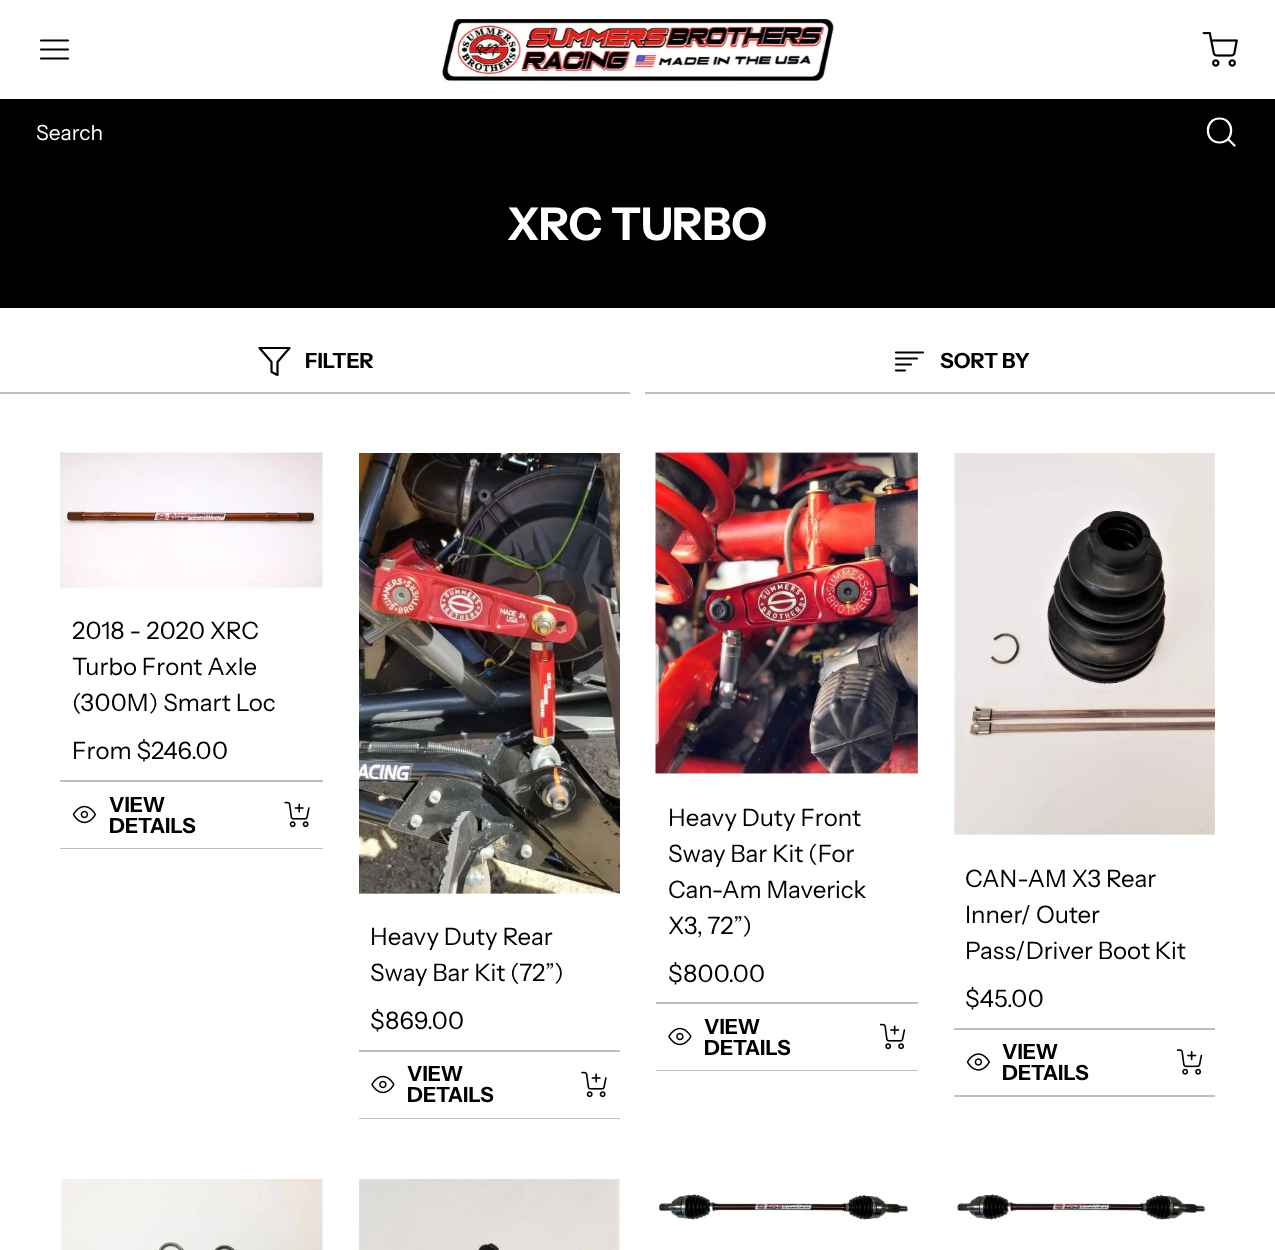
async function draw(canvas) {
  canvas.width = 1275;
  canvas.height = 1250;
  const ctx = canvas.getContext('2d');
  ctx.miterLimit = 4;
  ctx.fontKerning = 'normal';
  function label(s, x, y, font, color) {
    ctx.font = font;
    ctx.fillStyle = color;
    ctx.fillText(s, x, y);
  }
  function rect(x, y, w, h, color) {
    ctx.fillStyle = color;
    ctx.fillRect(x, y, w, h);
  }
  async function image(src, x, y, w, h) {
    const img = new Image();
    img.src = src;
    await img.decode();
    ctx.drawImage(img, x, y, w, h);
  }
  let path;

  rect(0, 0, 1275, 1250, '#fff');
  path = new Path2D('M41 49.5H68M41 40.5H68M41 58.5H68');
  ctx.strokeStyle = '#000';
  ctx.lineWidth = 2.2;
  ctx.lineCap = 'round';
  ctx.lineJoin = 'round';
  ctx.stroke(path);
  await image('assets/img1.png', 441, 19, 394, 63);
  await image('assets/img2.png', 1202, 32, 36, 35);
  rect(0, 99, 1275, 209, '#000');
  label('Search', 36, 140, '21px Instrument Sans', '#fff');
  path = new Path2D('M1219.5 142.5C1235 142.5 1235 118.5 1219.5 118.5C1204 118.5 1204 142.5 1219.5 142.5ZM1234.5 145.5L1228 139');
  ctx.strokeStyle = '#fff';
  ctx.stroke(path);
  label('XRC TURBO', 507, 240, 'bold 45px Instrument Sans', '#fff');
  path = new Path2D('M289.5 348H259.5L271.5 362V372L277.5 375V362Z');
  ctx.strokeStyle = '#000';
  ctx.stroke(path);
  label('FILTER', 305, 368, 'bold 21px Instrument Sans', '#000');
  rect(0, 392, 630, 2, '#bfbfbf');
  path = new Path2D('M917 358.5H896M923 352.5H896M911 364.5H896M905 370.5H896');
  ctx.stroke(path);
  label('SORT BY', 940, 368, 'bold 21px Instrument Sans', '#000');
  rect(645, 392, 630, 2, '#bfbfbf');
  await image('assets/img3.png', 60, 452, 263, 136);
  label('2018 - 2020 XRC', 72, 639, '24px Instrument Sans', '#000');
  label('Turbo Front Axle', 72, 675, '24px Instrument Sans', '#000');
  label('(300M) Smart Loc', 72, 711, '24px Instrument Sans', '#000');
  label('From $246.00', 72, 759, '24px Instrument Sans', '#000');
  rect(60, 780, 263, 2, '#bfbfbf');
  rect(60, 848, 263, 1, '#bfbfbf');
  await image('assets/img4.png', 72, 805, 24, 19);
  label('VIEW', 109, 812, 'bold 21px Instrument Sans', '#000');
  label('DETAILS', 109, 833, 'bold 21px Instrument Sans', '#000');
  await image('assets/img5.png', 284, 801, 26, 27);
  await image('assets/img6.png', 359, 453, 261, 441);
  label('Heavy Duty Rear', 370, 945, '24px Instrument Sans', '#000');
  label('Sway Bar Kit (72”)', 370, 981, '24px Instrument Sans', '#000');
  label('$869.00', 370, 1029, '24px Instrument Sans', '#000');
  rect(359, 1050, 261, 2, '#bfbfbf');
  rect(359, 1118, 261, 1, '#bfbfbf');
  await image('assets/img7.png', 371, 1075, 24, 19);
  label('VIEW', 407, 1081, 'bold 21px Instrument Sans', '#000');
  label('DETAILS', 407, 1102, 'bold 21px Instrument Sans', '#000');
  await image('assets/img5.png', 581, 1071, 26, 27);
  await image('assets/img8.png', 655, 452, 263, 322);
  label('Heavy Duty Front', 668, 826, '24px Instrument Sans', '#000');
  label('Sway Bar Kit (For', 668, 862, '24px Instrument Sans', '#000');
  label('Can-Am Maverick', 668, 898, '24px Instrument Sans', '#000');
  label('X3, 72”)', 668, 934, '24px Instrument Sans', '#000');
  label('$800.00', 668, 982, '24px Instrument Sans', '#000');
  rect(656, 1002, 262, 2, '#bfbfbf');
  rect(656, 1070, 262, 1, '#bfbfbf');
  await image('assets/img7.png', 668, 1027, 24, 19);
  label('VIEW', 704, 1034, 'bold 21px Instrument Sans', '#000');
  label('DETAILS', 704, 1055, 'bold 21px Instrument Sans', '#000');
  await image('assets/img9.png', 879, 1023, 27, 27);
  await image('assets/img10.png', 954, 453, 261, 382);
  label('CAN-AM X3 Rear', 965, 887, '24px Instrument Sans', '#000');
  label('Inner/ Outer', 965, 923, '24px Instrument Sans', '#000');
  label('Pass/Driver Boot Kit', 965, 959, '24px Instrument Sans', '#000');
  label('$45.00', 965, 1007, '24px Instrument Sans', '#000');
  rect(954, 1028, 261, 2, '#bfbfbf');
  rect(954, 1095, 261, 2, '#bfbfbf');
  await image('assets/img11.png', 966, 1053, 24, 18);
  label('VIEW', 1002, 1059, 'bold 21px Instrument Sans', '#000');
  label('DETAILS', 1002, 1080, 'bold 21px Instrument Sans', '#000');
  await image('assets/img12.png', 1176, 1049, 27, 26);
  await image('assets/img13.png', 60, 1179, 263, 71);
  await image('assets/img14.png', 359, 1179, 261, 71);
  await image('assets/img15.png', 659, 1194, 250, 26);
  await image('assets/img16.png', 957, 1194, 249, 26);
}

draw(document.querySelector('canvas'));
